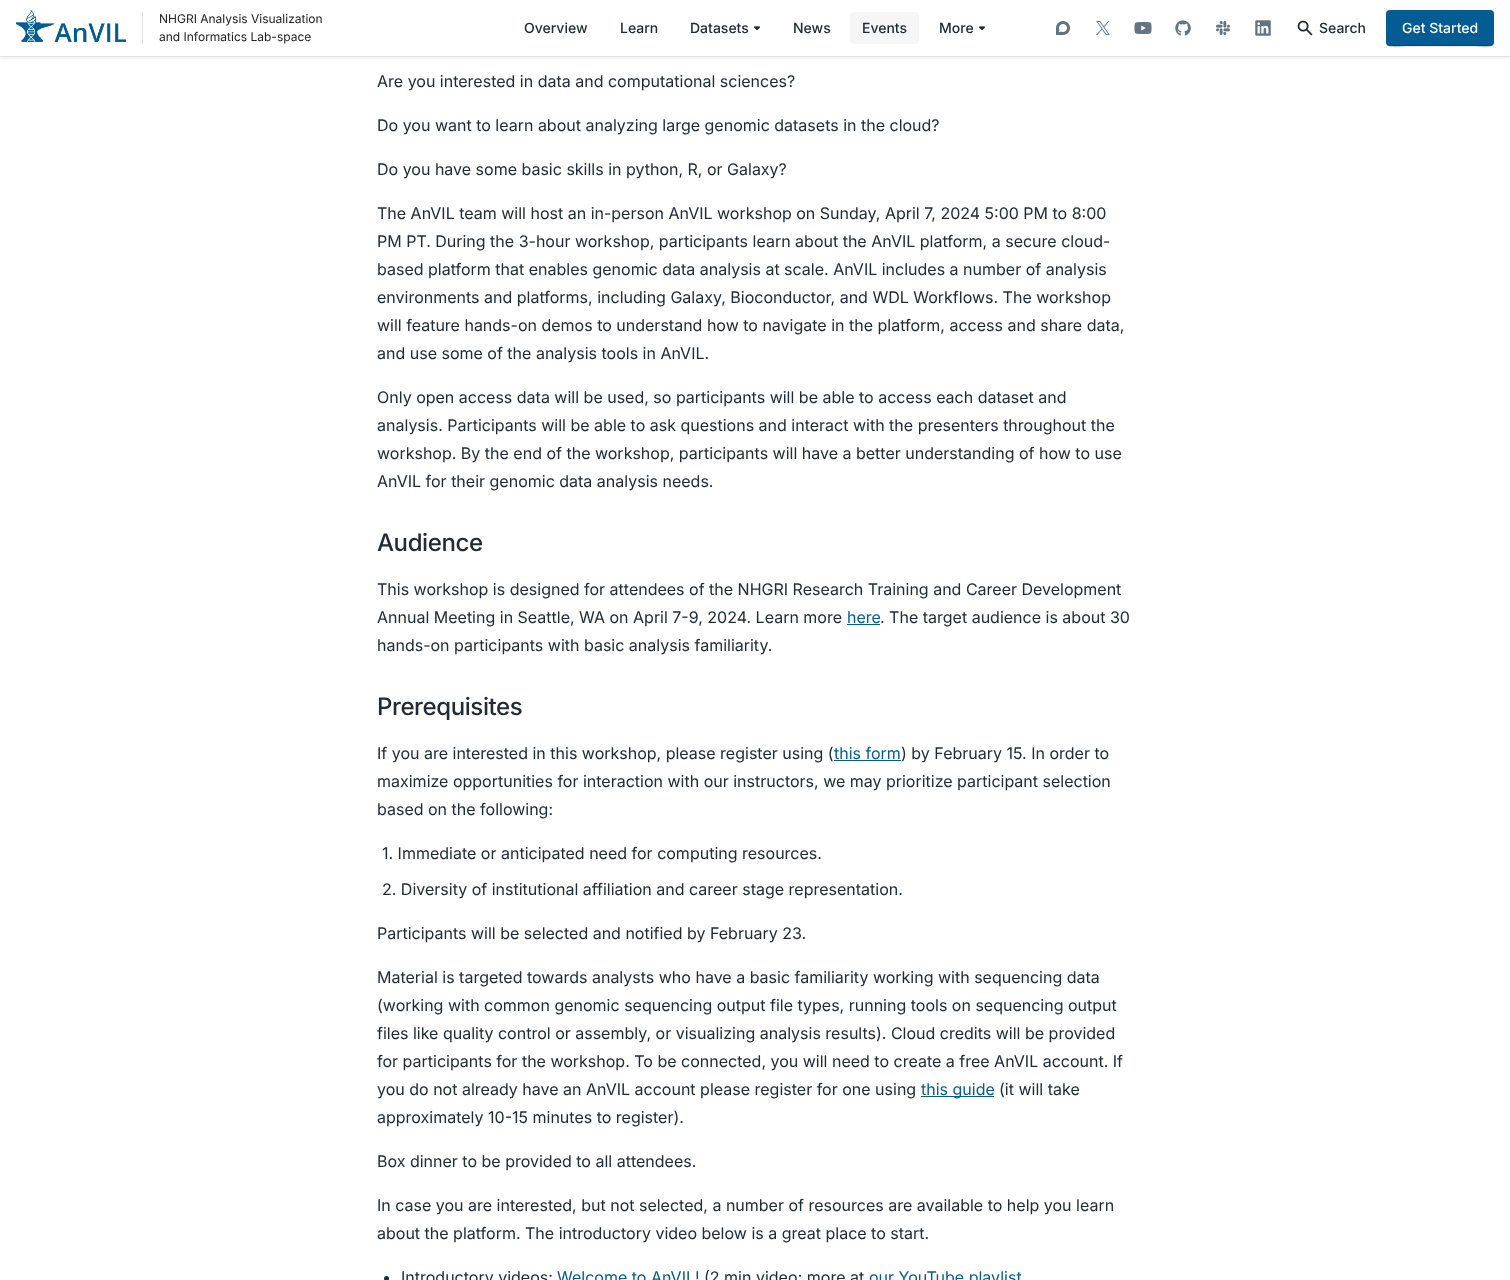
async function draw(canvas) {
  canvas.width = 1510;
  canvas.height = 1280;
  const ctx = canvas.getContext('2d');
  ctx.miterLimit = 4;
  ctx.fontKerning = 'normal';
  function label(s, x, y, font, color) {
    ctx.font = font;
    ctx.fillStyle = color;
    ctx.fillText(s, x, y);
  }
  function rect(x, y, w, h, color) {
    ctx.fillStyle = color;
    ctx.fillRect(x, y, w, h);
  }
  function roundedRect(x, y, w, h, r, color) {
    ctx.fillStyle = color;
    ctx.beginPath();
    ctx.roundRect(x, y, w, h, r);
    ctx.fill();
  }
  async function image(src, x, y, w, h) {
    const img = new Image();
    img.src = src;
    await img.decode();
    ctx.drawImage(img, x, y, w, h);
  }
  let path;

  rect(0, 0, 1510, 1280, '#fff');
  ctx.fillStyle = '#00000012';
  ctx.filter = 'blur(2px)';
  ctx.beginPath();
  ctx.rect(0, 1, 1510, 57);
  ctx.fill();
  ctx.filter = 'none';
  rect(0, 0, 1510, 56, '#fff');
  rect(0, 56, 1510, 1, '#e1e3e5');
  await image('assets/img1.png', 16, 10, 110, 32);
  rect(142, 12, 1, 32, '#e1e3e5');
  label('NHGRI Analysis Visualization', 159, 23, '12px Inter', '#212121');
  label('and Informatics Lab-space', 159, 41, '12px Inter', '#212121');
  label('Overview', 524, 33, '500 14px Inter', '#212b36');
  label('Learn', 620, 33, '500 14px Inter', '#212b36');
  label('Datasets', 690, 33, '500 14px Inter', '#212b36');
  await image('assets/img2.png', 754, 26, 6, 5);
  label('News', 793, 33, '500 14px Inter', '#212b36');
  roundedRect(850, 12, 69, 32, 4, '#f6f6f7');
  label('Events', 862, 33, '500 14px Inter', '#212b36');
  label('More', 939, 33, '500 14px Inter', '#212b36');
  await image('assets/img2.png', 979, 26, 6, 5);
  await image('assets/img3.png', 1056, 21, 14, 14);
  await image('assets/img4.png', 1096, 21, 14, 14);
  await image('assets/img5.png', 1134, 22, 18, 12);
  await image('assets/img6.png', 1175, 20, 16, 16);
  await image('assets/img7.png', 1216, 21, 14, 14);
  await image('assets/img8.png', 1255, 20, 16, 16);
  await image('assets/img9.png', 1297, 20, 16, 16);
  label('Search', 1319, 33, '500 14px Inter', '#212b36');
  ctx.fillStyle = '#ebebeb';
  path = new Path2D('M1386 42C1386 51 1403 47 1407 47H1473C1477 47 1494 51 1494 42C1494 44 1492 46 1490 46H1390C1388 46 1386 44 1386 42Z');
  ctx.fill(path);
  roundedRect(1386, 10, 108, 36, 4, '#035c94');
  ctx.fillStyle = '#00000033';
  path = new Path2D('M1386 41C1386 50 1403 46 1407 46H1473C1477 46 1494 50 1494 41C1494 43 1492 45 1490 45H1390C1388 45 1386 43 1386 41Z');
  ctx.fill(path);
  label('Get Started', 1402, 33, '500 14px Inter', '#fff');
  label('Are you interested in data and computational sciences?', 377, 87, '16px Inter', '#212b36');
  label('Do you want to learn about analyzing large genomic datasets in the cloud?', 377, 131, '16px Inter', '#212b36');
  label('Do you have some basic skills in python, R, or Galaxy?', 377, 175, '16px Inter', '#212b36');
  label('The AnVIL team will host an in-person AnVIL workshop on Sunday, April 7, 2024 5:00 PM to 8:00', 377, 219, '16px Inter', '#212b36');
  label('PM PT. During the 3-hour workshop, participants learn about the AnVIL platform, a secure cloud-', 377, 247, '16px Inter', '#212b36');
  label('based platform that enables genomic data analysis at scale. AnVIL includes a number of analysis', 377, 275, '16px Inter', '#212b36');
  label('environments and platforms, including Galaxy, Bioconductor, and WDL Workflows. The workshop', 377, 303, '16px Inter', '#212b36');
  label('will feature hands-on demos to understand how to navigate in the platform, access and share data,', 377, 331, '16px Inter', '#212b36');
  label('and use some of the analysis tools in AnVIL.', 377, 359, '16px Inter', '#212b36');
  label('Only open access data will be used, so participants will be able to access each dataset and', 377, 403, '16px Inter', '#212b36');
  label('analysis. Participants will be able to ask questions and interact with the presenters throughout the', 377, 431, '16px Inter', '#212b36');
  label('workshop. By the end of the workshop, participants will have a better understanding of how to use', 377, 459, '16px Inter', '#212b36');
  label('AnVIL for their genomic data analysis needs.', 377, 487, '16px Inter', '#212b36');
  ctx.letterSpacing = '-0.4px';
  label('Audience', 377, 551, '500 24px Inter', '#212b36');
  ctx.letterSpacing = '0px';
  label('This workshop is designed for attendees of the NHGRI Research Training and Career Development', 377, 595, '16px Inter', '#212b36');
  label('Annual Meeting in Seattle, WA on April 7-9, 2024. Learn more', 377, 623, '16px Inter', '#212b36');
  label('here', 847, 623, '16px Inter', '#035c94');
  rect(847, 624, 33, 1, '#035c94');
  label('. The target audience is about 30', 880, 623, '16px Inter', '#212b36');
  label('hands-on participants with basic analysis familiarity.', 377, 651, '16px Inter', '#212b36');
  ctx.letterSpacing = '-0.4px';
  label('Prerequisites', 377, 715, '500 24px Inter', '#212b36');
  ctx.letterSpacing = '0px';
  label('If you are interested in this workshop, please register using (', 377, 759, '16px Inter', '#212b36');
  label('this form', 834, 759, '16px Inter', '#035c94');
  rect(834, 760, 67, 1, '#035c94');
  label(') by February 15. In order to', 901, 759, '16px Inter', '#212b36');
  label('maximize opportunities for interaction with our instructors, we may prioritize participant selection', 377, 787, '16px Inter', '#212b36');
  label('based on the following:', 377, 815, '16px Inter', '#212b36');
  label('1. Immediate or anticipated need for computing resources.', 382, 859, '16px Inter', '#212b36');
  label('2. Diversity of institutional affiliation and career stage representation.', 382, 895, '16px Inter', '#212b36');
  label('Participants will be selected and notified by February 23.', 377, 939, '16px Inter', '#212b36');
  label('Material is targeted towards analysts who have a basic familiarity working with sequencing data', 377, 983, '16px Inter', '#212b36');
  label('(working with common genomic sequencing output file types, running tools on sequencing output', 377, 1011, '16px Inter', '#212b36');
  label('files like quality control or assembly, or visualizing analysis results). Cloud credits will be provided', 377, 1039, '16px Inter', '#212b36');
  label('for participants for the workshop. To be connected, you will need to create a free AnVIL account. If', 377, 1067, '16px Inter', '#212b36');
  label('you do not already have an AnVIL account please register for one using', 377, 1095, '16px Inter', '#212b36');
  rect(921, 1096, 73, 1, '#035c94');
  label('this guide', 921, 1095, '16px Inter', '#035c94');
  label('(it will take', 999, 1095, '16px Inter', '#212b36');
  label('approximately 10-15 minutes to register).', 377, 1123, '16px Inter', '#212b36');
  label('Box dinner to be provided to all attendees.', 377, 1167, '16px Inter', '#212b36');
  label('In case you are interested, but not selected, a number of resources are available to help you learn', 377, 1211, '16px Inter', '#212b36');
  label('about the platform. The introductory video below is a great place to start.', 377, 1239, '16px Inter', '#212b36');
  ctx.beginPath();
  ctx.arc(386.5, 1278.5, 2.5, 0, 2 * Math.PI);
  ctx.fill();
  label('Introductory videos:', 401, 1283, '16px Inter', '#212b36');
  label('Welcome to AnVIL!', 557, 1283, '16px Inter', '#035c94');
  label('(2 min video; more at', 704, 1283, '16px Inter', '#212b36');
  label('our YouTube playlist', 869, 1283, '16px Inter', '#035c94');
}

draw(document.querySelector('canvas'));
